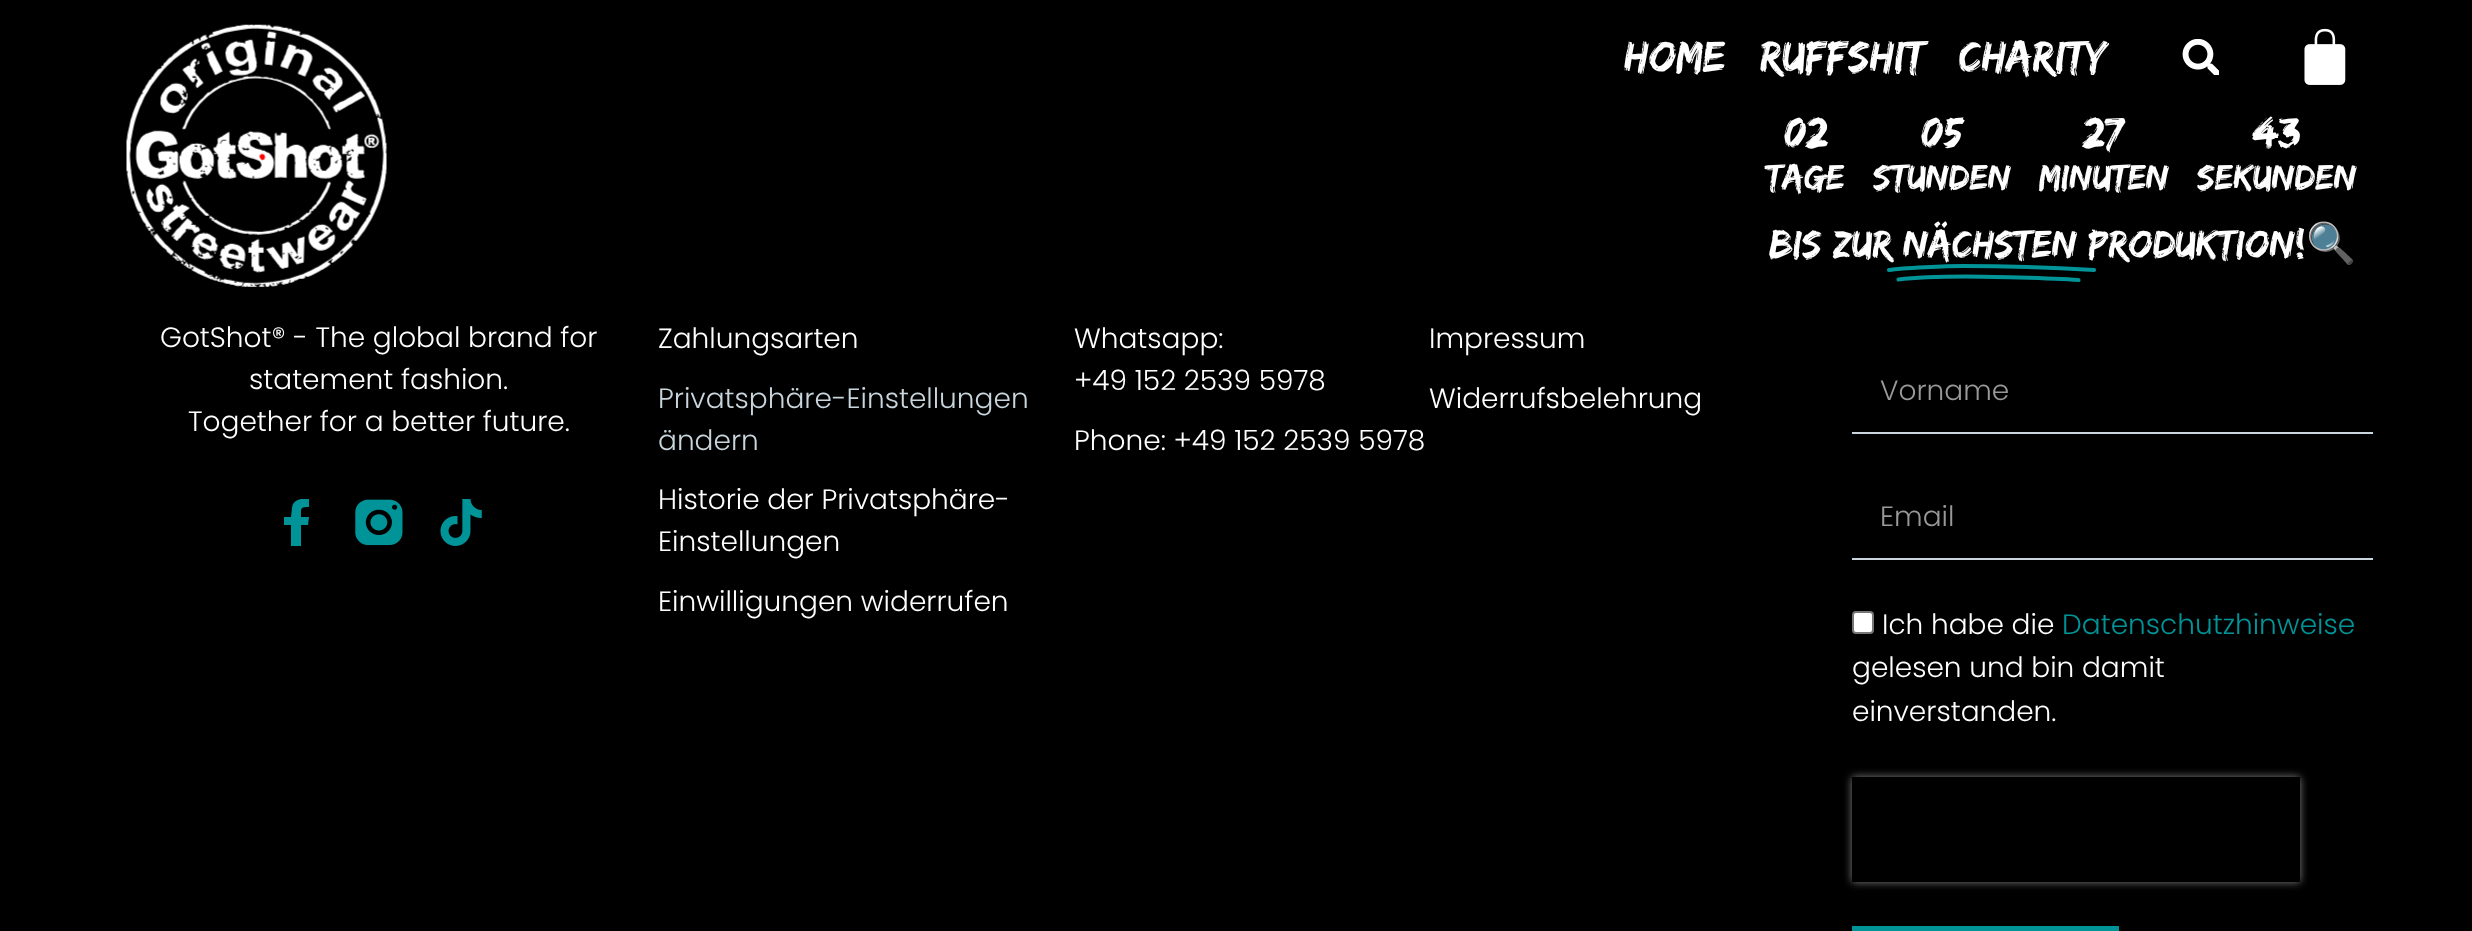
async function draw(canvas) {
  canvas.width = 2472;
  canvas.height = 931;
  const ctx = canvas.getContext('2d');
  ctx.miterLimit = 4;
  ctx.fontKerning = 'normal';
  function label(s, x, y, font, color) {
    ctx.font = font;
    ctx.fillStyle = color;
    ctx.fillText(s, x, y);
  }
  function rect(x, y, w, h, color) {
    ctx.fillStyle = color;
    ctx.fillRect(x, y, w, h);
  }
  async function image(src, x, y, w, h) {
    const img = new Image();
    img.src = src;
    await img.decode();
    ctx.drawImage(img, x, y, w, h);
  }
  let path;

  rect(0, 0, 2472, 931, '#000');
  await image('assets/img1.png', 126, 24, 261, 263);
  label('Home', 1624, 71, '45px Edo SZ', '#fff');
  label('Ruffshit', 1760, 71, '45px Edo SZ', '#fff');
  label('Charity', 1959, 71, '45px Edo SZ', '#fff');
  await image('assets/img2.png', 2182, 39, 37, 36);
  await image('assets/img3.png', 2304, 28, 42, 57);
  label('02', 1784, 146, '44px Edo SZ', '#fff');
  label('Tage', 1766, 189, '36.75px Edo SZ', '#fff');
  label('05', 1921, 146, '44px Edo SZ', '#fff');
  label('Stunden', 1873, 189, '36.75px Edo SZ', '#fff');
  label('27', 2083, 146, '44px Edo SZ', '#fff');
  label('Minuten', 2039, 189, '36.75px Edo SZ', '#fff');
  label('43', 2252, 146, '44px Edo SZ', '#fff');
  label('Sekunden', 2197, 189, '36.75px Edo SZ', '#fff');
  label('Bis Zur Nächsten Produktion!', 1769, 257, '40.25px Edo SZ', '#fff');
  label('🔍', 2306, 257, '40.25px Noto Color Emoji', '#f00');
  path = new Path2D('M1889 270C1902 268 1947 266 1963 266C2012 266 2068.5 268.5 2094 270');
  ctx.strokeStyle = '#009397';
  ctx.lineWidth = 4.2;
  ctx.lineCap = 'round';
  ctx.lineJoin = 'round';
  ctx.stroke(path);
  path = new Path2D('M1898.5 279.5C1921.5 276.5 1951 276.5 1966 276.5C1985.5 276.5 2051 278 2078.5 280');
  ctx.stroke(path);
  label('GotShot® - The global brand for', 160, 347, '300 28px Poppins', '#fff');
  label('statement fashion.', 249, 389, '300 28px Poppins', '#fff');
  label('Together for a better future.', 188, 431, '300 28px Poppins', '#fff');
  ctx.save();
  ctx.beginPath();
  ctx.rect(273, 499, 47, 47);
  ctx.clip();
  ctx.fillStyle = '#009397';
  path = new Path2D('M308 525L309 517H301C301 508 300 507 309 507V499C302 498 293 499 292 508L291 517H284V525H291V546H301V525Z');
  ctx.fill(path);
  ctx.restore();
  await image('assets/img4.png', 355, 499, 48, 47);
  await image('assets/img5.png', 440, 499, 42, 47);
  label('Zahlungsarten', 658, 348, '300 28px Poppins', '#fff');
  label('Privatsphäre-Einstellungen', 658, 408, '300 28px Poppins', '#c8d5dc');
  label('ändern', 658, 450, '300 28px Poppins', '#c8d5dc');
  label('Historie der Privatsphäre-', 658, 509, '300 28px Poppins', '#fff');
  label('Einstellungen', 658, 551, '300 28px Poppins', '#fff');
  label('Einwilligungen widerrufen', 658, 611, '300 28px Poppins', '#fff');
  label('Whatsapp:', 1074, 348, '300 28px Poppins', '#fff');
  label('+49 152 2539 5978', 1074, 390, '300 28px Poppins', '#fff');
  label('Phone: +49 152 2539 5978', 1074, 450, '300 28px Poppins', '#fff');
  label('Impressum', 1429, 348, '300 28px Poppins', '#fff');
  label('Widerrufsbelehrung', 1429, 408, '300 28px Poppins', '#fff');
  rect(1852, 432, 521, 2, '#c8d5dc');
  label('Vorname', 1880, 400, '300 28px Poppins', '#999');
  rect(1852, 558, 521, 2, '#c8d5dc');
  label('Email', 1880, 526, '300 28px Poppins', '#999');
  ctx.fillStyle = '#fff';
  ctx.beginPath();
  ctx.roundRect(1853, 612, 20, 21, 3);
  ctx.fill();
  ctx.strokeStyle = '#767676';
  ctx.lineWidth = 2;
  ctx.lineJoin = 'miter';
  ctx.stroke();
  label('Ich habe die', 1882, 634, '300 28px Poppins', '#fff');
  label('Datenschutzhinweise', 2062, 634, '300 28px Poppins', '#009397');
  label('gelesen und bin damit', 1852, 677, '300 28px Poppins', '#fff');
  label('einverstanden.', 1852, 721, '300 28px Poppins', '#fff');
  ctx.save();
  path = new Path2D('M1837 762H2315V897H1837ZM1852 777H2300V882H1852Z');
  ctx.clip(path, 'evenodd');
  ctx.fillStyle = '#808080';
  ctx.filter = 'blur(4.5px)';
  ctx.beginPath();
  ctx.rect(1852, 777, 448, 105);
  ctx.fill();
  ctx.filter = 'none';
  ctx.restore();
  rect(1852, 926, 267, 5, '#009397');
}

draw(document.querySelector('canvas'));
